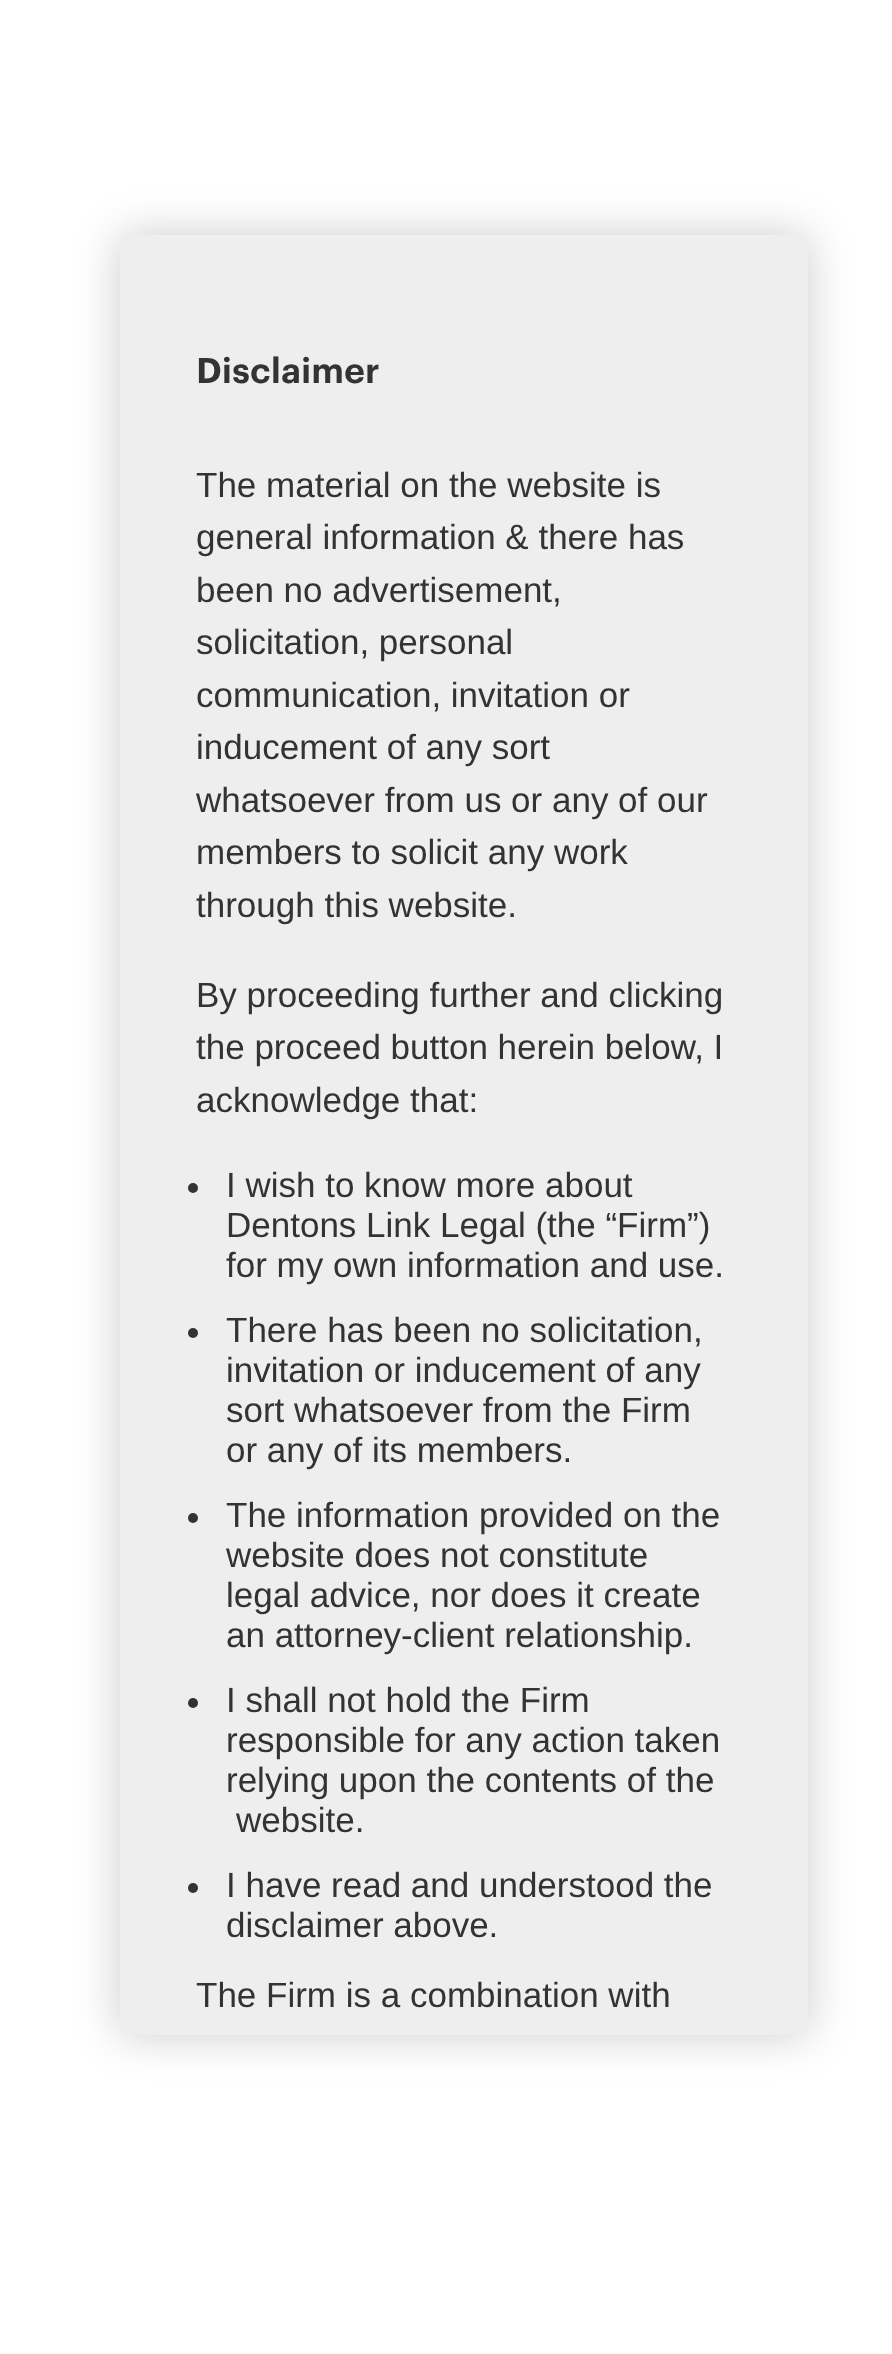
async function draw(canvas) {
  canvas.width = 892;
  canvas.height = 2354;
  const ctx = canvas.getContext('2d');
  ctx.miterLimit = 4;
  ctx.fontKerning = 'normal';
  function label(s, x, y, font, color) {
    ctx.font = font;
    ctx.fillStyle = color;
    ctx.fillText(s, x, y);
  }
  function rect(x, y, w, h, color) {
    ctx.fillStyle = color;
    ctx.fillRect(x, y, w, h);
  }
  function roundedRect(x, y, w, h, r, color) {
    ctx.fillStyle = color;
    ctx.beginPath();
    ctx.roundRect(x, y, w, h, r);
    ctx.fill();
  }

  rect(0, 0, 892, 2354, '#fff');
  ctx.fillStyle = '#00000033';
  ctx.filter = 'blur(22.5px)';
  ctx.beginPath();
  ctx.roundRect(120, 235, 688, 1800, 6);
  ctx.fill();
  ctx.filter = 'none';
  roundedRect(120, 235, 688, 1800, 6, '#eee');
  label('Disclaimer', 196, 383, '600 35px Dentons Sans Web', '#333');
  label('The material on the website is', 196, 497, '35px Liberation Sans', '#333');
  label('general information & there has', 196, 549, '35px Liberation Sans', '#333');
  label('been no advertisement,', 196, 602, '35px Liberation Sans', '#333');
  label('solicitation, personal', 196, 654, '35px Liberation Sans', '#333');
  label('communication, invitation or', 196, 707, '35px Liberation Sans', '#333');
  label('inducement of any sort', 196, 759, '35px Liberation Sans', '#333');
  label('whatsoever from us or any of our', 196, 812, '35px Liberation Sans', '#333');
  label('members to solicit any work', 196, 864, '35px Liberation Sans', '#333');
  label('through this website.', 196, 917, '35px Liberation Sans', '#333');
  label('By proceeding further and clicking', 196, 1007, '35px Liberation Sans', '#333');
  label('the proceed button herein below, I', 196, 1059, '35px Liberation Sans', '#333');
  label('acknowledge that:', 196, 1112, '35px Liberation Sans', '#333');
  ctx.beginPath();
  ctx.arc(193, 1188, 5, 0, 2 * Math.PI);
  ctx.fill();
  label('I wish to know more about', 226, 1197, '35px Liberation Sans', '#333');
  label('Dentons Link Legal (the “Firm”)', 226, 1237, '35px Liberation Sans', '#333');
  label('for my own information and use.', 226, 1277, '35px Liberation Sans', '#333');
  ctx.beginPath();
  ctx.arc(193, 1333, 5, 0, 2 * Math.PI);
  ctx.fill();
  label('There has been no solicitation,', 226, 1342, '35px Liberation Sans', '#333');
  label('invitation or inducement of any', 226, 1382, '35px Liberation Sans', '#333');
  label('sort whatsoever from the Firm', 226, 1422, '35px Liberation Sans', '#333');
  label('or any of its members.', 226, 1462, '35px Liberation Sans', '#333');
  ctx.beginPath();
  ctx.arc(193, 1518, 5, 0, 2 * Math.PI);
  ctx.fill();
  label('The information provided on the', 226, 1527, '35px Liberation Sans', '#333');
  label('website does not constitute', 226, 1567, '35px Liberation Sans', '#333');
  label('legal advice, nor does it create', 226, 1607, '35px Liberation Sans', '#333');
  label('an attorney-client relationship.', 226, 1647, '35px Liberation Sans', '#333');
  ctx.beginPath();
  ctx.arc(193, 1703, 5, 0, 2 * Math.PI);
  ctx.fill();
  label('I shall not hold the Firm', 226, 1712, '35px Liberation Sans', '#333');
  label('responsible for any action taken', 226, 1752, '35px Liberation Sans', '#333');
  label('relying upon the contents of the', 226, 1792, '35px Liberation Sans', '#333');
  label('website.', 236, 1832, '35px Liberation Sans', '#333');
  ctx.beginPath();
  ctx.arc(193, 1888, 5, 0, 2 * Math.PI);
  ctx.fill();
  label('I have read and understood the', 226, 1897, '35px Liberation Sans', '#333');
  label('disclaimer above.', 226, 1937, '35px Liberation Sans', '#333');
  label('The Firm is a combination with', 196, 2007, '35px Liberation Sans', '#333');
}

draw(document.querySelector('canvas'));
